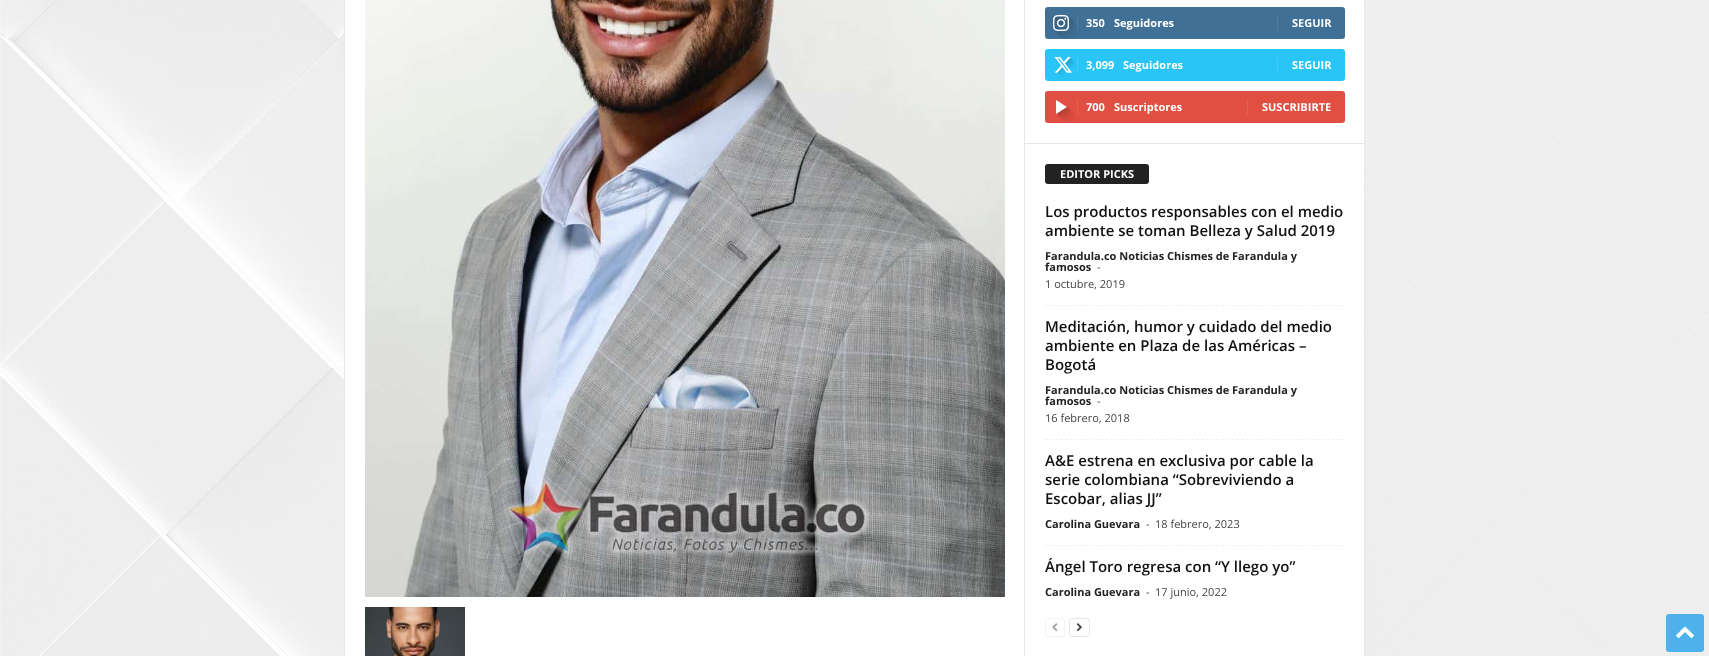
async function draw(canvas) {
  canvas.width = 1709;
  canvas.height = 656;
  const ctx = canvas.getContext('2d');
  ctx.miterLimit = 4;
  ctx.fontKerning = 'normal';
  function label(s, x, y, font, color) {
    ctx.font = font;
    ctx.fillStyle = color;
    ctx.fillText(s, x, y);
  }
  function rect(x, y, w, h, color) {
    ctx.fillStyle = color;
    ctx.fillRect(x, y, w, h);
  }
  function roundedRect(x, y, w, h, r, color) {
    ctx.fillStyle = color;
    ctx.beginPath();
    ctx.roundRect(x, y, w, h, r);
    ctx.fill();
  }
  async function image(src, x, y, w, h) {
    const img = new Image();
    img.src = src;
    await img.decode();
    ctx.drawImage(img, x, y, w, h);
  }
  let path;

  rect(0, 0, 1709, 656, '#fff');
  await image('assets/img1.png', 0, 0, 1709, 656);
  rect(345, 0, 1019, 656, '#fff');
  rect(344, 0, 1, 656, '#e6e6e6');
  await image('assets/img2.png', 365, 0, 640, 597);
  await image('assets/img3.png', 365, 607, 100, 49);
  rect(1024, 0, 1, 656, '#e6e6e6');
  roundedRect(1045, 7, 300, 32, 3, '#417096');
  await image('assets/img4.png', 1053, 15, 24, 24);
  rect(1077, 15, 1, 16, '#547ea1');
  label('350', 1086, 27, 'bold 11px Open Sans', '#fff');
  label('Seguidores', 1114, 27, 'bold 11px Open Sans', '#fff');
  rect(1277, 15, 1, 16, '#547ea1');
  label('SEGUIR', 1292, 27, 'bold 11px Open Sans', '#fff');
  roundedRect(1045, 49, 300, 32, 3, '#29c5f6');
  await image('assets/img5.png', 1054, 57, 23, 21);
  rect(1077, 57, 1, 16, '#3ecbf7');
  label('3,099', 1086, 69, 'bold 11px Open Sans', '#fff');
  label('Seguidores', 1123, 69, 'bold 11px Open Sans', '#fff');
  rect(1277, 57, 1, 16, '#3ecbf7');
  label('SEGUIR', 1292, 69, 'bold 11px Open Sans', '#fff');
  roundedRect(1045, 91, 300, 32, 3, '#e14e42');
  await image('assets/img6.png', 1056, 100, 19, 23);
  rect(1077, 99, 1, 16, '#e46055');
  label('700', 1086, 111, 'bold 11px Open Sans', '#fff');
  label('Suscriptores', 1114, 111, 'bold 11px Open Sans', '#fff');
  rect(1247, 99, 1, 16, '#e46055');
  label('SUSCRIBIRTE', 1262, 111, 'bold 11px Open Sans', '#fff');
  rect(1025, 143, 339, 1, '#e6e6e6');
  roundedRect(1045, 164, 104, 20, 3, '#222');
  label('EDITOR PICKS', 1060, 178, 'bold 11px Open Sans', '#fff');
  path = new Path2D('M1045 305.5H1345');
  ctx.strokeStyle = '#f1f1f1';
  ctx.setLineDash([3, 2.03]);
  ctx.stroke(path);
  label('Los productos responsables con el medio', 1045, 217, '600 15px Open Sans', '#111');
  label('ambiente se toman Belleza y Salud 2019', 1045, 236, '600 15px Open Sans', '#111');
  label('Farandula.co Noticias Chismes de Farandula y', 1045, 260, 'bold 11px Open Sans', '#222');
  label('famosos', 1045, 271, 'bold 11px Open Sans', '#222');
  label('-', 1097, 271, '11px Open Sans', '#444');
  label('1 octubre, 2019', 1045, 288, '11px Open Sans', '#444');
  path = new Path2D('M1045 439.5H1345');
  ctx.stroke(path);
  label('Meditación, humor y cuidado del medio', 1045, 332, '600 15px Open Sans', '#111');
  label('ambiente en Plaza de las Américas –', 1045, 351, '600 15px Open Sans', '#111');
  label('Bogotá', 1045, 370, '600 15px Open Sans', '#111');
  label('Farandula.co Noticias Chismes de Farandula y', 1045, 394, 'bold 11px Open Sans', '#222');
  label('famosos', 1045, 405, 'bold 11px Open Sans', '#222');
  label('-', 1097, 405, '11px Open Sans', '#444');
  label('16 febrero, 2018', 1045, 422, '11px Open Sans', '#444');
  path = new Path2D('M1045 545.5H1345');
  ctx.stroke(path);
  label('A&E estrena en exclusiva por cable la', 1045, 466, '600 15px Open Sans', '#111');
  label('serie colombiana “Sobreviviendo a', 1045, 485, '600 15px Open Sans', '#111');
  label('Escobar, alias JJ”', 1045, 504, '600 15px Open Sans', '#111');
  label('Carolina Guevara', 1045, 528, 'bold 11px Open Sans', '#222');
  label('-', 1146, 528, '11px Open Sans', '#444');
  label('18 febrero, 2023', 1155, 528, '11px Open Sans', '#444');
  label('Ángel Toro regresa con “Y llego yo”', 1045, 572, '600 15px Open Sans', '#111');
  label('Carolina Guevara', 1045, 596, 'bold 11px Open Sans', '#222');
  label('-', 1146, 596, '11px Open Sans', '#444');
  label('17 junio, 2022', 1155, 596, '11px Open Sans', '#444');
  ctx.beginPath();
  ctx.roundRect(1045.5, 618.5, 19, 18, 2.5);
  ctx.strokeStyle = '#f3f3f3';
  ctx.setLineDash([]);
  ctx.stroke();
  await image('assets/img7.png', 1052, 623, 6, 9);
  ctx.beginPath();
  ctx.roundRect(1069.5, 618.5, 20, 18, 2.5);
  ctx.strokeStyle = '#e6e6e6';
  ctx.stroke();
  await image('assets/img8.png', 1076, 623, 6, 9);
  rect(1364, 0, 1, 656, '#e6e6e6');
  roundedRect(1666, 614, 38, 38, 3, '#4db2ec');
  await image('assets/img9.png', 1676, 626, 18, 13);
}

draw(document.querySelector('canvas'));
